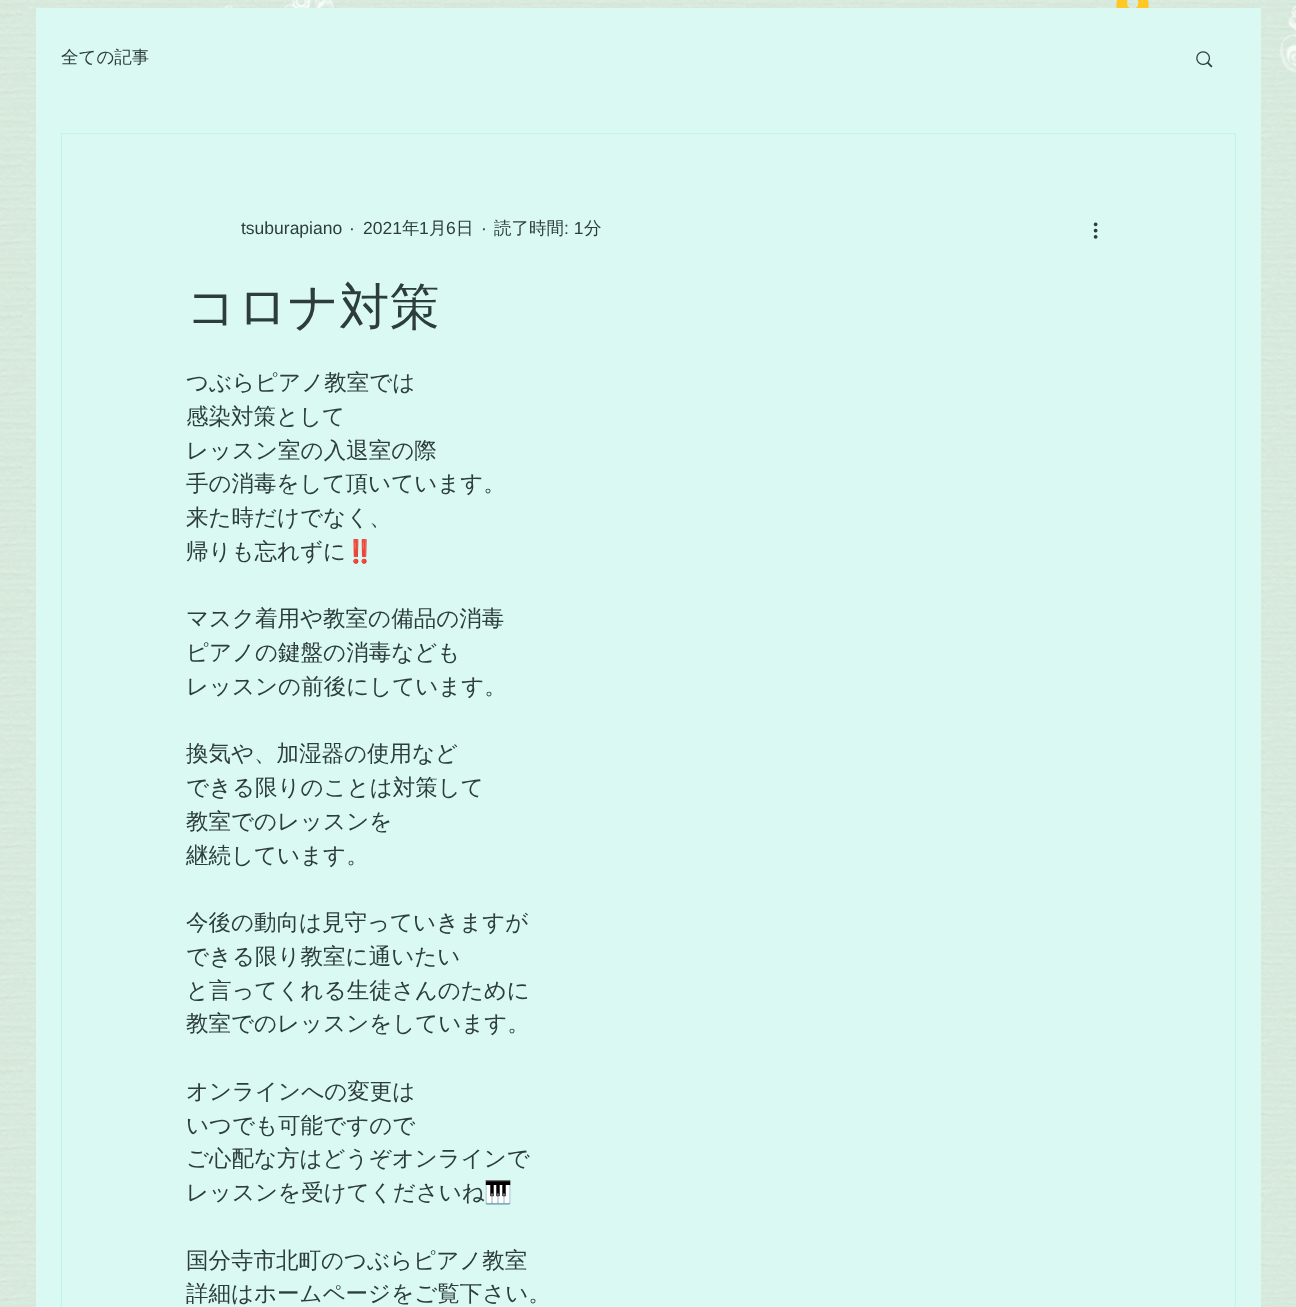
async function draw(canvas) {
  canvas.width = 1296;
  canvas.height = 1307;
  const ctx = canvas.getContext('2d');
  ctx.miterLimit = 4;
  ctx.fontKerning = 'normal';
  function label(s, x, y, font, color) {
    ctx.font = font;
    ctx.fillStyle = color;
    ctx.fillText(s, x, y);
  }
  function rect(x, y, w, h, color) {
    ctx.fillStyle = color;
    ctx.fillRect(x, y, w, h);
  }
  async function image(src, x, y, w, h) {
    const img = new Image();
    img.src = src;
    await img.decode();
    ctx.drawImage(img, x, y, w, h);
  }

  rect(0, 0, 1296, 1307, '#fff');
  await image('assets/img1.png', 0, 0, 1296, 1307);
  await image('assets/img2.png', 1116, 0, 33, 8);
  rect(36, 8, 1225, 1299, '#daf9f3');
  label('全ての記事', 61, 63, '500 17.5px WenQuanYi Zen Hei', '#2d3d3a');
  await image('assets/img3.png', 1196, 51, 17, 17);
  ctx.strokeStyle = '#bff5eb';
  ctx.strokeRect(61.5, 133.5, 1174, 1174);
  label('tsuburapiano', 241, 234, '17.5px Liberation Sans', '#2d3d3a');
  label('·', 349, 234, '17.5px Liberation Sans', '#2d3d3a');
  label('2021', 363, 234, '17.5px Liberation Sans', '#2d3d3a');
  label('年', 402, 234, '500 17.5px WenQuanYi Zen Hei', '#2d3d3a');
  label('1', 419, 234, '17.5px Liberation Sans', '#2d3d3a');
  label('月', 429, 234, '500 17.5px WenQuanYi Zen Hei', '#2d3d3a');
  label('6', 446, 234, '17.5px Liberation Sans', '#2d3d3a');
  label('日', 456, 234, '500 17.5px WenQuanYi Zen Hei', '#2d3d3a');
  label('·', 481, 234, '17.5px Liberation Sans', '#2d3d3a');
  label('読了時間', 494, 234, '500 17.5px WenQuanYi Zen Hei', '#2d3d3a');
  label(': 1', 564, 234, '17.5px Liberation Sans', '#2d3d3a');
  label('分', 584, 234, '500 17.5px WenQuanYi Zen Hei', '#2d3d3a');
  await image('assets/img4.png', 1093, 222, 5, 17);
  label('コロナ対策', 186, 324, '500 50px WenQuanYi Zen Hei', '#2d3d3a');
  label('つぶらピアノ教室では', 186, 390, '500 22.5px WenQuanYi Zen Hei', '#2d3d3a');
  label('感染対策として', 186, 424, '500 22.5px WenQuanYi Zen Hei', '#2d3d3a');
  label('レッスン室の入退室の際', 186, 458, '500 22.5px WenQuanYi Zen Hei', '#2d3d3a');
  label('手の消毒をして頂いています。', 186, 491, '500 22.5px WenQuanYi Zen Hei', '#2d3d3a');
  label('来た時だけでなく、', 186, 525, '500 22.5px WenQuanYi Zen Hei', '#2d3d3a');
  label('帰りも忘れずに', 186, 559, '500 22.5px WenQuanYi Zen Hei', '#2d3d3a');
  label('‼️', 346, 559, '22.5px Noto Color Emoji', '#2d3d3a');
  label('マスク着用や教室の備品の消毒', 186, 626, '500 22.5px WenQuanYi Zen Hei', '#2d3d3a');
  label('ピアノの鍵盤の消毒なども', 186, 660, '500 22.5px WenQuanYi Zen Hei', '#2d3d3a');
  label('レッスンの前後にしています。', 186, 694, '500 22.5px WenQuanYi Zen Hei', '#2d3d3a');
  label('換気や、加湿器の使用など', 186, 761, '500 22.5px WenQuanYi Zen Hei', '#2d3d3a');
  label('できる限りのことは対策して', 186, 795, '500 22.5px WenQuanYi Zen Hei', '#2d3d3a');
  label('教室でのレッスンを', 186, 829, '500 22.5px WenQuanYi Zen Hei', '#2d3d3a');
  label('継続しています。', 186, 863, '500 22.5px WenQuanYi Zen Hei', '#2d3d3a');
  label('今後の動向は見守っていきますが', 186, 930, '500 22.5px WenQuanYi Zen Hei', '#2d3d3a');
  label('できる限り教室に通いたい', 186, 964, '500 22.5px WenQuanYi Zen Hei', '#2d3d3a');
  label('と言ってくれる生徒さんのために', 186, 998, '500 22.5px WenQuanYi Zen Hei', '#2d3d3a');
  label('教室でのレッスンをしています。', 186, 1031, '500 22.5px WenQuanYi Zen Hei', '#2d3d3a');
  label('オンラインへの変更は', 186, 1099, '500 22.5px WenQuanYi Zen Hei', '#2d3d3a');
  label('いつでも可能ですので', 186, 1133, '500 22.5px WenQuanYi Zen Hei', '#2d3d3a');
  label('ご心配な方はどうぞオンラインで', 186, 1166, '500 22.5px WenQuanYi Zen Hei', '#2d3d3a');
  label('レッスンを受けてくださいね', 186, 1200, '500 22.5px WenQuanYi Zen Hei', '#2d3d3a');
  label('🎹', 484, 1200, '22.5px Noto Color Emoji', '#2d3d3a');
  label('国分寺市北町のつぶらピアノ教室', 186, 1268, '500 22.5px WenQuanYi Zen Hei', '#2d3d3a');
  label('詳細はホームページをご覧下さい。', 186, 1301, '500 22.5px WenQuanYi Zen Hei', '#2d3d3a');
}

draw(document.querySelector('canvas'));
